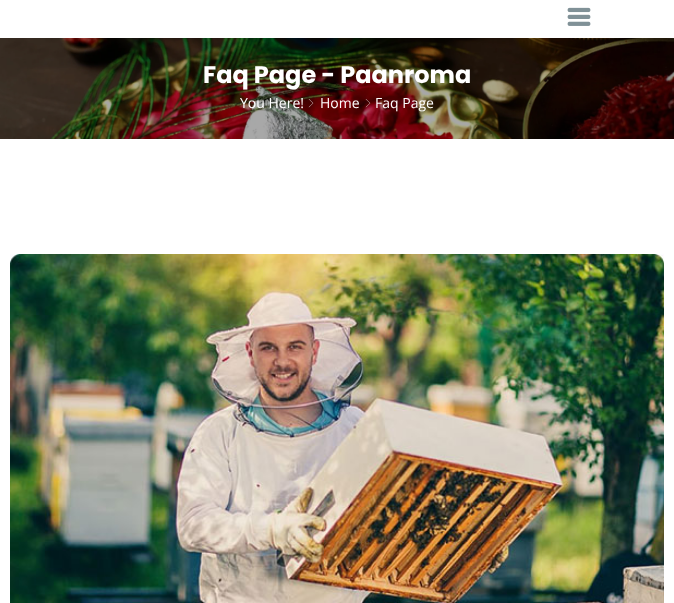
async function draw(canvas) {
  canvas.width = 674;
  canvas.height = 603;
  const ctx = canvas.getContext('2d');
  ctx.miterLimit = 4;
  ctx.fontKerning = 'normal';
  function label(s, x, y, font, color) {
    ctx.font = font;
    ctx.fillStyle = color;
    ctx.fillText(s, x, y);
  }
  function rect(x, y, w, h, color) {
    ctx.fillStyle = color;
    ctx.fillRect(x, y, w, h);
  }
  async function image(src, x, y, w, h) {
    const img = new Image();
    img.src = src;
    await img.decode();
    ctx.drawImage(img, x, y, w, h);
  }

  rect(0, 0, 674, 603, '#fff');
  await image('assets/img1.png', 567, 7, 24, 19);
  await image('assets/img2.png', 0, 38, 674, 101);
  label('Faq Page - Paanroma', 203, 83, 'bold 24px Poppins', '#fff');
  label('You Here!', 240, 108, '14px Open Sans', '#fff');
  await image('assets/img3.png', 308, 99, 6, 9);
  label('Home', 320, 108, '14px Open Sans', '#fff');
  await image('assets/img4.png', 365, 99, 6, 9);
  label('Faq Page', 375, 108, '14px Open Sans', '#fff');
  await image('assets/img5.png', 10, 254, 654, 349);
}

draw(document.querySelector('canvas'));
